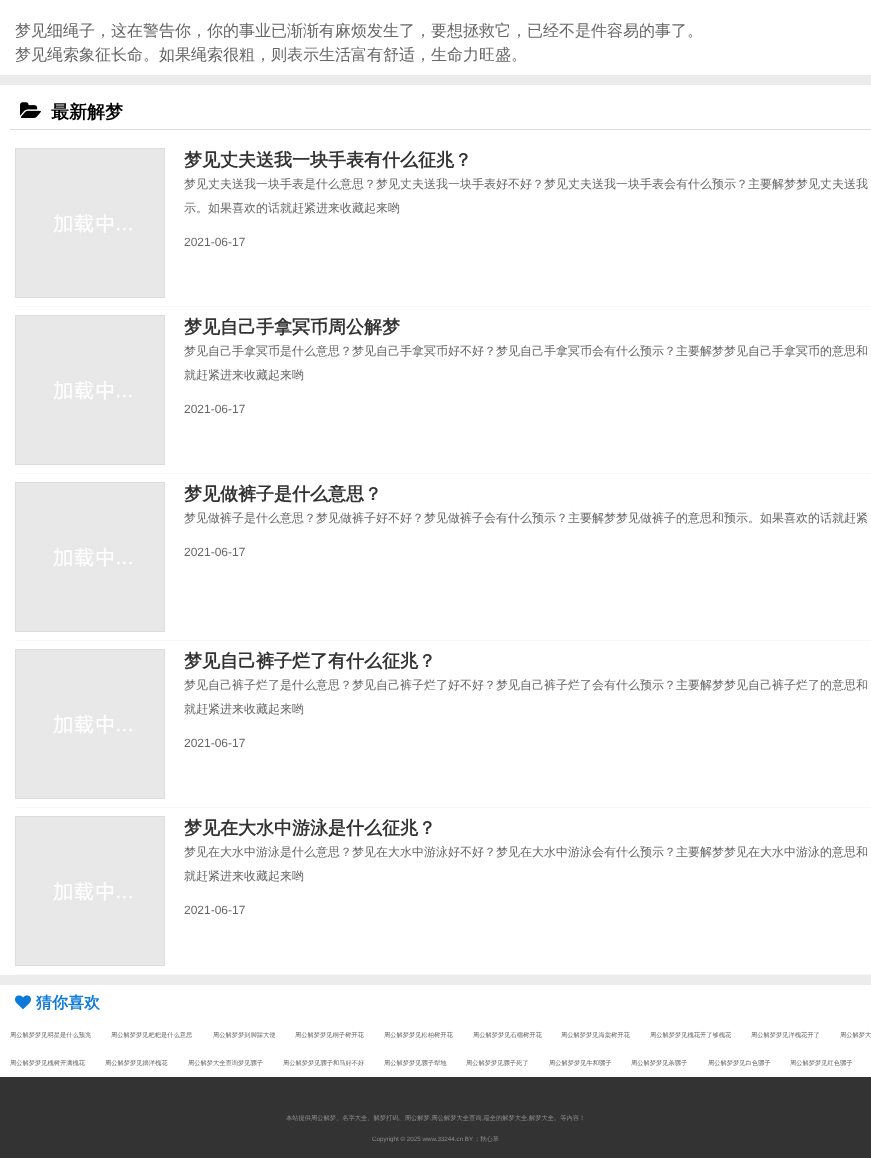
async function draw(canvas) {
  canvas.width = 871;
  canvas.height = 1158;
  const ctx = canvas.getContext('2d');
  ctx.miterLimit = 4;
  ctx.fontKerning = 'normal';
  function label(s, x, y, font, color) {
    ctx.font = font;
    ctx.fillStyle = color;
    ctx.fillText(s, x, y);
  }
  function rect(x, y, w, h, color) {
    ctx.fillStyle = color;
    ctx.fillRect(x, y, w, h);
  }
  async function image(src, x, y, w, h) {
    const img = new Image();
    img.src = src;
    await img.decode();
    ctx.drawImage(img, x, y, w, h);
  }

  rect(0, 0, 871, 1158, '#ececec');
  rect(0, 0, 871, 75, '#fff');
  label('梦见细绳子，这在警告你，你的事业已渐渐有麻烦发生了，要想拯救它，已经不是件容易的事了。', 15, 36, '500 16px WenQuanYi Zen Hei', '#666');
  label('梦见绳索象征长命。如果绳索很粗，则表示生活富有舒适，生命力旺盛。', 15, 60, '500 16px WenQuanYi Zen Hei', '#666');
  rect(0, 85, 871, 890, '#fff');
  rect(10, 129, 861, 1, '#ddd');
  await image('assets/img1.png', 20, 102, 21, 16);
  label('最新解梦', 51, 118, 'bold 18px WenQuanYi Zen Hei', '#000');
  rect(15, 306, 856, 1, '#f7f7f7');
  ctx.strokeStyle = '#ddd';
  ctx.strokeRect(15.5, 148.5, 149, 149);
  await image('assets/img2.png', 16, 149, 148, 148);
  label('梦见丈夫送我一块手表有什么征兆？', 184, 166, 'bold 18px WenQuanYi Zen Hei', '#333');
  label('梦见丈夫送我一块手表是什么意思？梦见丈夫送我一块手表好不好？梦见丈夫送我一块手表会有什么预示？主要解梦梦见丈夫送我', 184, 188, '500 12px WenQuanYi Zen Hei', '#666');
  label('示。如果喜欢的话就赶紧进来收藏起来哟', 184, 212, '500 12px WenQuanYi Zen Hei', '#666');
  label('2021-06-17', 184, 246, '12px Liberation Sans', '#666');
  rect(15, 473, 856, 1, '#f7f7f7');
  ctx.strokeRect(15.5, 315.5, 149, 149);
  await image('assets/img2.png', 16, 316, 148, 148);
  label('梦见自己手拿冥币周公解梦', 184, 333, 'bold 18px WenQuanYi Zen Hei', '#333');
  label('梦见自己手拿冥币是什么意思？梦见自己手拿冥币好不好？梦见自己手拿冥币会有什么预示？主要解梦梦见自己手拿冥币的意思和', 184, 355, '500 12px WenQuanYi Zen Hei', '#666');
  label('就赶紧进来收藏起来哟', 184, 379, '500 12px WenQuanYi Zen Hei', '#666');
  label('2021-06-17', 184, 413, '12px Liberation Sans', '#666');
  rect(15, 640, 856, 1, '#f7f7f7');
  ctx.strokeRect(15.5, 482.5, 149, 149);
  await image('assets/img2.png', 16, 483, 148, 148);
  label('梦见做裤子是什么意思？', 184, 500, 'bold 18px WenQuanYi Zen Hei', '#333');
  label('梦见做裤子是什么意思？梦见做裤子好不好？梦见做裤子会有什么预示？主要解梦梦见做裤子的意思和预示。如果喜欢的话就赶紧', 184, 522, '500 12px WenQuanYi Zen Hei', '#666');
  label('2021-06-17', 184, 556, '12px Liberation Sans', '#666');
  rect(15, 807, 856, 1, '#f7f7f7');
  ctx.strokeRect(15.5, 649.5, 149, 149);
  await image('assets/img2.png', 16, 650, 148, 148);
  label('梦见自己裤子烂了有什么征兆？', 184, 667, 'bold 18px WenQuanYi Zen Hei', '#333');
  label('梦见自己裤子烂了是什么意思？梦见自己裤子烂了好不好？梦见自己裤子烂了会有什么预示？主要解梦梦见自己裤子烂了的意思和', 184, 689, '500 12px WenQuanYi Zen Hei', '#666');
  label('就赶紧进来收藏起来哟', 184, 713, '500 12px WenQuanYi Zen Hei', '#666');
  label('2021-06-17', 184, 747, '12px Liberation Sans', '#666');
  rect(15, 974, 856, 1, '#f7f7f7');
  ctx.strokeRect(15.5, 816.5, 149, 149);
  await image('assets/img2.png', 16, 817, 148, 148);
  label('梦见在大水中游泳是什么征兆？', 184, 834, 'bold 18px WenQuanYi Zen Hei', '#333');
  label('梦见在大水中游泳是什么意思？梦见在大水中游泳好不好？梦见在大水中游泳会有什么预示？主要解梦梦见在大水中游泳的意思和', 184, 856, '500 12px WenQuanYi Zen Hei', '#666');
  label('就赶紧进来收藏起来哟', 184, 880, '500 12px WenQuanYi Zen Hei', '#666');
  label('2021-06-17', 184, 914, '12px Liberation Sans', '#666');
  rect(0, 985, 871, 92, '#fff');
  await image('assets/img3.png', 15, 995, 16, 15);
  label('猜你喜欢', 36, 1008, 'bold 16px WenQuanYi Zen Hei', '#0d7ad9');
  label('周公解梦梦见明星是什么预兆', 10, 1037, '500 6.25px WenQuanYi Zen Hei', '#666');
  label('周公解梦梦见粑粑是什么意思', 111, 1037, '500 6.25px WenQuanYi Zen Hei', '#666');
  label('周公解梦梦到脚踩大便', 213, 1037, '500 6.25px WenQuanYi Zen Hei', '#666');
  label('周公解梦梦见桐子树开花', 295, 1037, '500 6.25px WenQuanYi Zen Hei', '#666');
  label('周公解梦梦见松柏树开花', 384, 1037, '500 6.25px WenQuanYi Zen Hei', '#666');
  label('周公解梦梦见石榴树开花', 473, 1037, '500 6.25px WenQuanYi Zen Hei', '#666');
  label('周公解梦梦见海棠树开花', 561, 1037, '500 6.25px WenQuanYi Zen Hei', '#666');
  label('周公解梦梦见槐花开了够槐花', 650, 1037, '500 6.25px WenQuanYi Zen Hei', '#666');
  label('周公解梦梦见洋槐花开了', 751, 1037, '500 6.25px WenQuanYi Zen Hei', '#666');
  label('周公解梦大', 840, 1037, '500 6.25px WenQuanYi Zen Hei', '#666');
  label('周公解梦梦见槐树开满槐花', 10, 1065, '500 6.25px WenQuanYi Zen Hei', '#666');
  label('周公解梦梦见摘洋槐花', 105, 1065, '500 6.25px WenQuanYi Zen Hei', '#666');
  label('周公解梦大全查询梦见骡子', 188, 1065, '500 6.25px WenQuanYi Zen Hei', '#666');
  label('周公解梦梦见骡子和马好不好', 283, 1065, '500 6.25px WenQuanYi Zen Hei', '#666');
  label('周公解梦梦见骡子犁地', 384, 1065, '500 6.25px WenQuanYi Zen Hei', '#666');
  label('周公解梦梦见骡子死了', 466, 1065, '500 6.25px WenQuanYi Zen Hei', '#666');
  label('周公解梦梦见牛和骡子', 549, 1065, '500 6.25px WenQuanYi Zen Hei', '#666');
  label('周公解梦梦见杀骡子', 631, 1065, '500 6.25px WenQuanYi Zen Hei', '#666');
  label('周公解梦梦见白色骡子', 708, 1065, '500 6.25px WenQuanYi Zen Hei', '#666');
  label('周公解梦梦见红色骡子', 790, 1065, '500 6.25px WenQuanYi Zen Hei', '#666');
  rect(0, 1077, 871, 81, '#333');
  label('本站提供周公解梦、名字大全、解梦打码、周公解梦 周公解梦大全查询 最全的解梦大全', 286, 1120, '500 6.25px WenQuanYi Zen Hei', '#8e8e8e');
  label(',', 527, 1120, '6.25px Liberation Sans', '#8e8e8e');
  label('解梦大全。等内容！', 529, 1120, '500 6.25px WenQuanYi Zen Hei', '#8e8e8e');
  label(',', 430, 1120, '6.25px Liberation Sans', '#8e8e8e');
  label(',', 482, 1120, '6.25px Liberation Sans', '#8e8e8e');
  label('Copyright © 2025 www.33244.cn BY', 372, 1141, '6.25px Liberation Sans', '#8e8e8e');
  label('：秋心草', 474, 1141, '500 6.25px WenQuanYi Zen Hei', '#8e8e8e');
}

draw(document.querySelector('canvas'));
